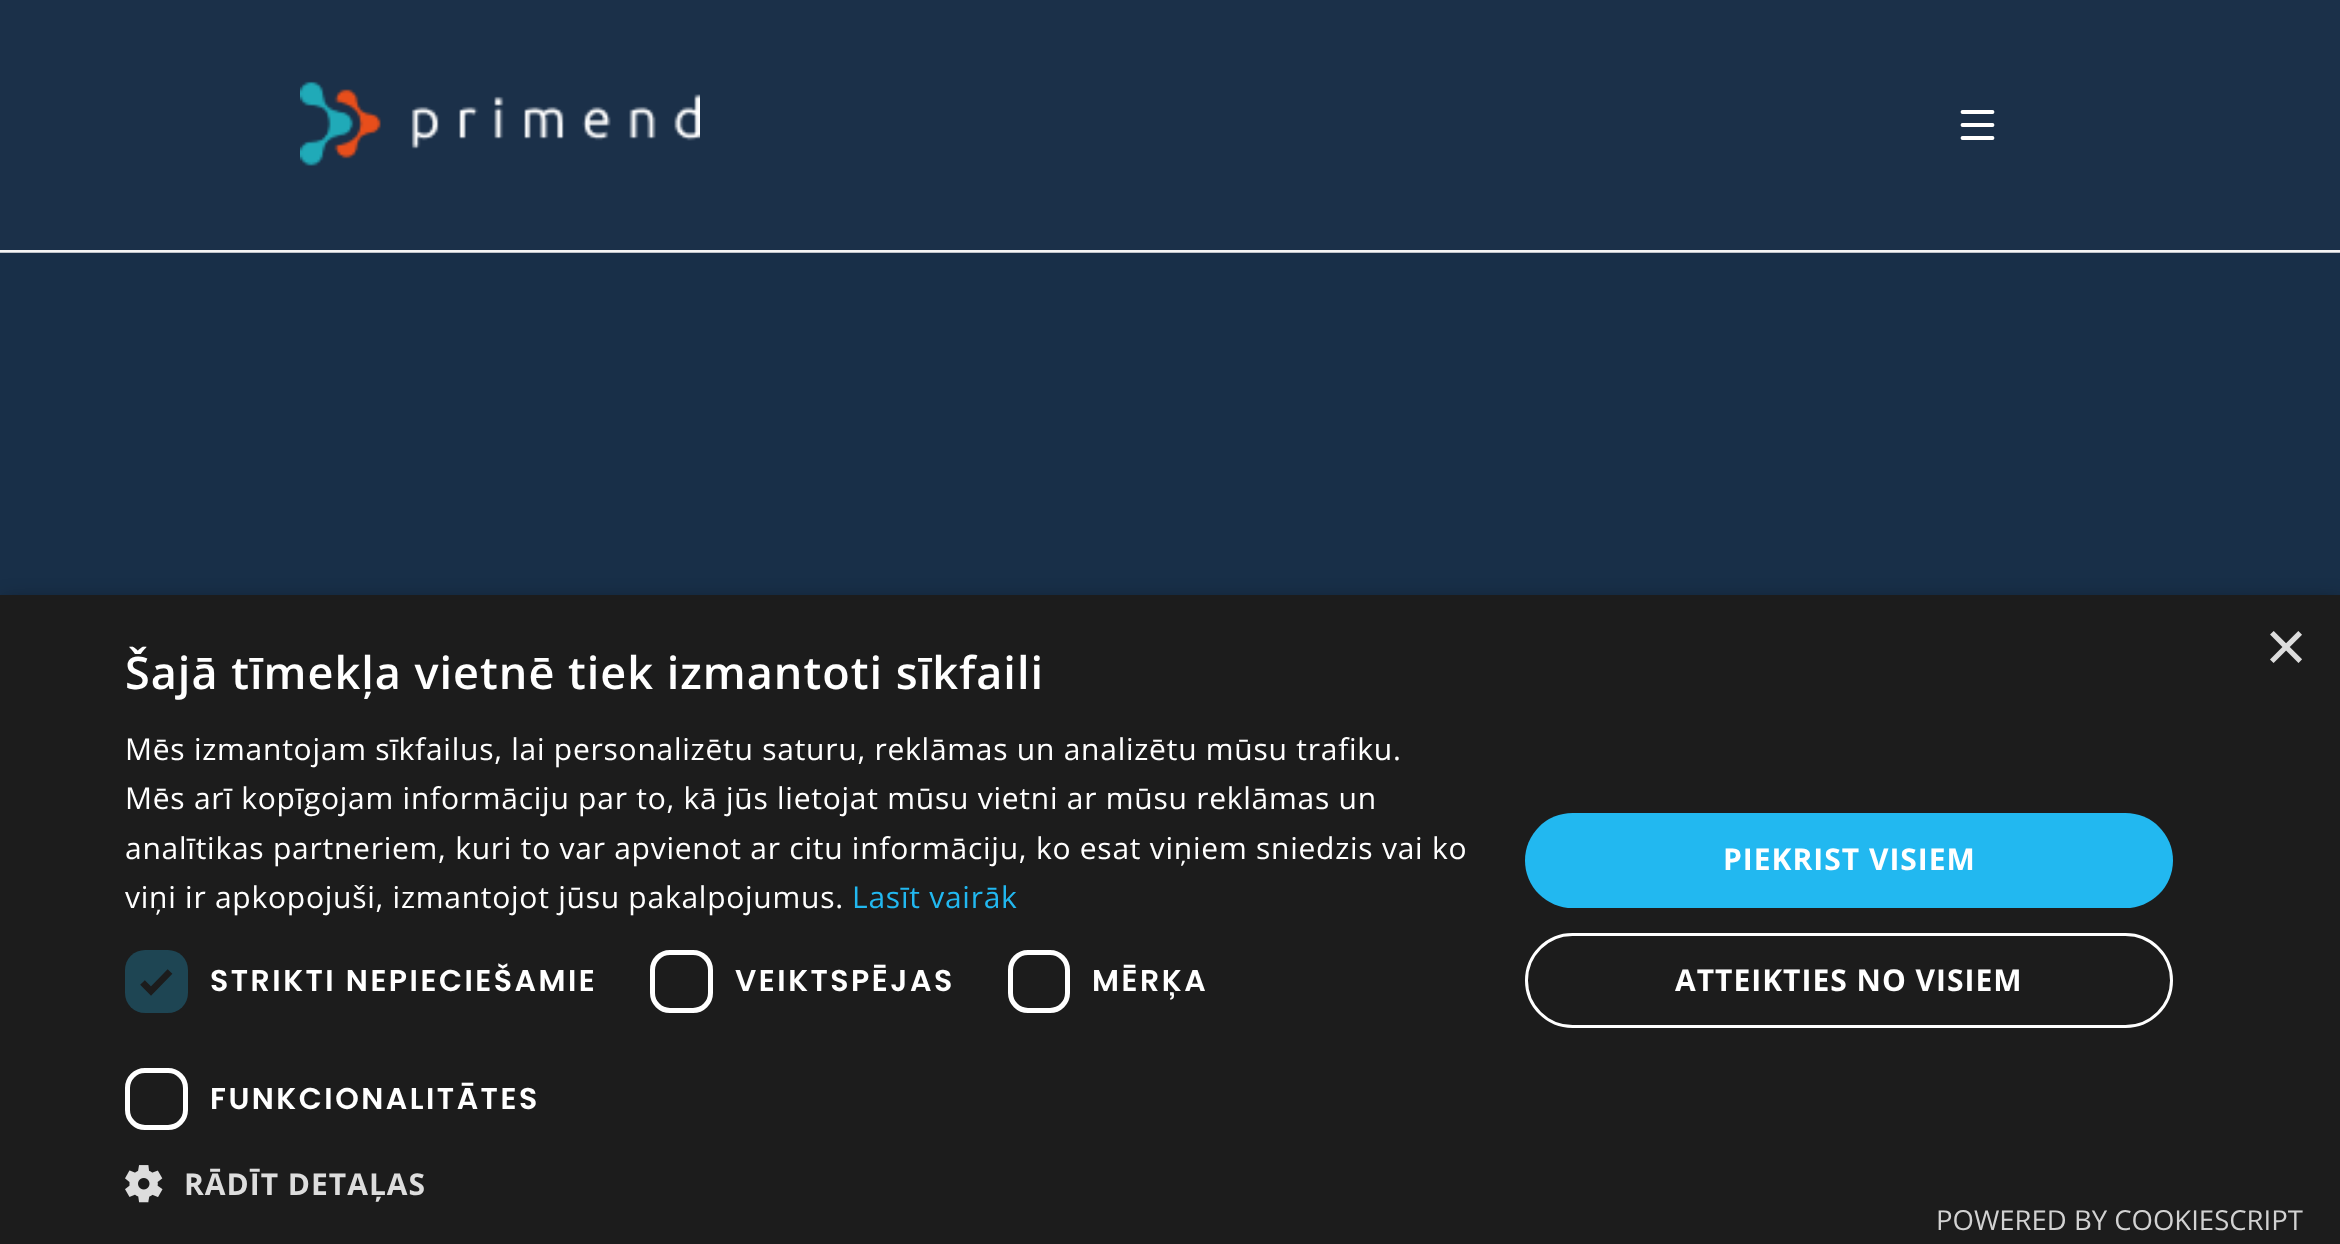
async function draw(canvas) {
  canvas.width = 2340;
  canvas.height = 1244;
  const ctx = canvas.getContext('2d');
  ctx.miterLimit = 4;
  ctx.fontKerning = 'normal';
  function label(s, x, y, font, color) {
    ctx.font = font;
    ctx.fillStyle = color;
    ctx.fillText(s, x, y);
  }
  function rect(x, y, w, h, color) {
    ctx.fillStyle = color;
    ctx.fillRect(x, y, w, h);
  }
  function roundedRect(x, y, w, h, r, color) {
    ctx.fillStyle = color;
    ctx.beginPath();
    ctx.roundRect(x, y, w, h, r);
    ctx.fill();
  }
  async function image(src, x, y, w, h) {
    const img = new Image();
    img.src = src;
    await img.decode();
    ctx.drawImage(img, x, y, w, h);
  }
  let path;

  rect(0, 0, 2340, 1244, '#1b3049');
  rect(0, 250, 2340, 3, '#f5f5f5');
  await image('assets/img1.png', 300, 81, 400, 85);
  path = new Path2D('M1962.5 112H1992.5M1962.5 125H1992.5M1992.5 138H1962.5');
  ctx.strokeStyle = '#fff';
  ctx.lineWidth = 3.8;
  ctx.lineCap = 'round';
  ctx.stroke(path);
  await image('assets/img2.png', 0, 252, 2340, 343);
  ctx.fillStyle = '#00000059';
  ctx.filter = 'blur(10px)';
  ctx.beginPath();
  ctx.rect(3, 600, 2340, 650);
  ctx.fill();
  ctx.filter = 'none';
  rect(0, 595, 2340, 649, '#1c1c1c');
  ctx.letterSpacing = '1px';
  label('Šajā tīmekļa vietnē tiek izmantoti sīkfaili', 125, 689, '600 45px Open Sans', '#fff');
  ctx.letterSpacing = '0.75px';
  label('Mēs izmantojam sīkfailus, lai personalizētu saturu, reklāmas un analizētu mūsu trafiku.', 125, 760, '30px Open Sans', '#fff');
  label('Mēs arī kopīgojam informāciju par to, kā jūs lietojat mūsu vietni ar mūsu reklāmas un', 125, 809, '30px Open Sans', '#fff');
  label('analītikas partneriem, kuri to var apvienot ar citu informāciju, ko esat viņiem sniedzis vai ko', 125, 859, '30px Open Sans', '#fff');
  label('viņi ir apkopojuši, izmantojot jūsu pakalpojumus.', 125, 908, '30px Open Sans', '#fff');
  label('Lasīt vairāk', 852, 908, '30px Open Sans', '#22b8f0');
  roundedRect(125, 950, 63, 63, 20, '#1e4553');
  path = new Path2D('M142.5 982.5L151 991L170 971.5');
  ctx.strokeStyle = '#1c1c1c';
  ctx.lineWidth = 6.6;
  ctx.lineCap = 'butt';
  ctx.stroke(path);
  ctx.letterSpacing = '2.5px';
  label('STRIKTI NEPIECIEŠAMIE', 210, 991, '600 30px Poppins', '#fff');
  ctx.beginPath();
  ctx.roundRect(652.5, 952.5, 58, 58, 17.5);
  ctx.strokeStyle = '#fff';
  ctx.lineWidth = 5;
  ctx.stroke();
  label('VEIKTSPĒJAS', 735, 991, '600 30px Poppins', '#fff');
  ctx.beginPath();
  ctx.roundRect(1010.5, 952.5, 57, 58, 17.5);
  ctx.stroke();
  label('MĒRĶA', 1092, 991, '600 30px Poppins', '#fff');
  ctx.beginPath();
  ctx.roundRect(127.5, 1070.5, 58, 57, 17.5);
  ctx.stroke();
  label('FUNKCIONALITĀTES', 210, 1109, '600 30px Poppins', '#fff');
  await image('assets/img3.png', 125, 1165, 38, 38);
  ctx.letterSpacing = '1px';
  label('RĀDĪT DETAĻAS', 184, 1195, 'bold 30px Open Sans', '#ddd');
  roundedRect(1525, 813, 648, 95, 47.5, '#22b8f0');
  label('PIEKRIST VISIEM', 1723, 870, 'bold 30px Open Sans', '#fff');
  ctx.beginPath();
  ctx.roundRect(1526.5, 934.5, 645, 92, 46);
  ctx.lineWidth = 3;
  ctx.stroke();
  label('ATTEIKTIES NO VISIEM', 1675, 991, 'bold 30px Open Sans', '#fff');
  ctx.letterSpacing = '0px';
  label('×', 2265, 671, '72px Liberation Sans', '#ddd');
  label('POWERED BY COOKIESCRIPT', 1936, 1230, '27.5px Open Sans', '#d2d2d2');
}

draw(document.querySelector('canvas'));
